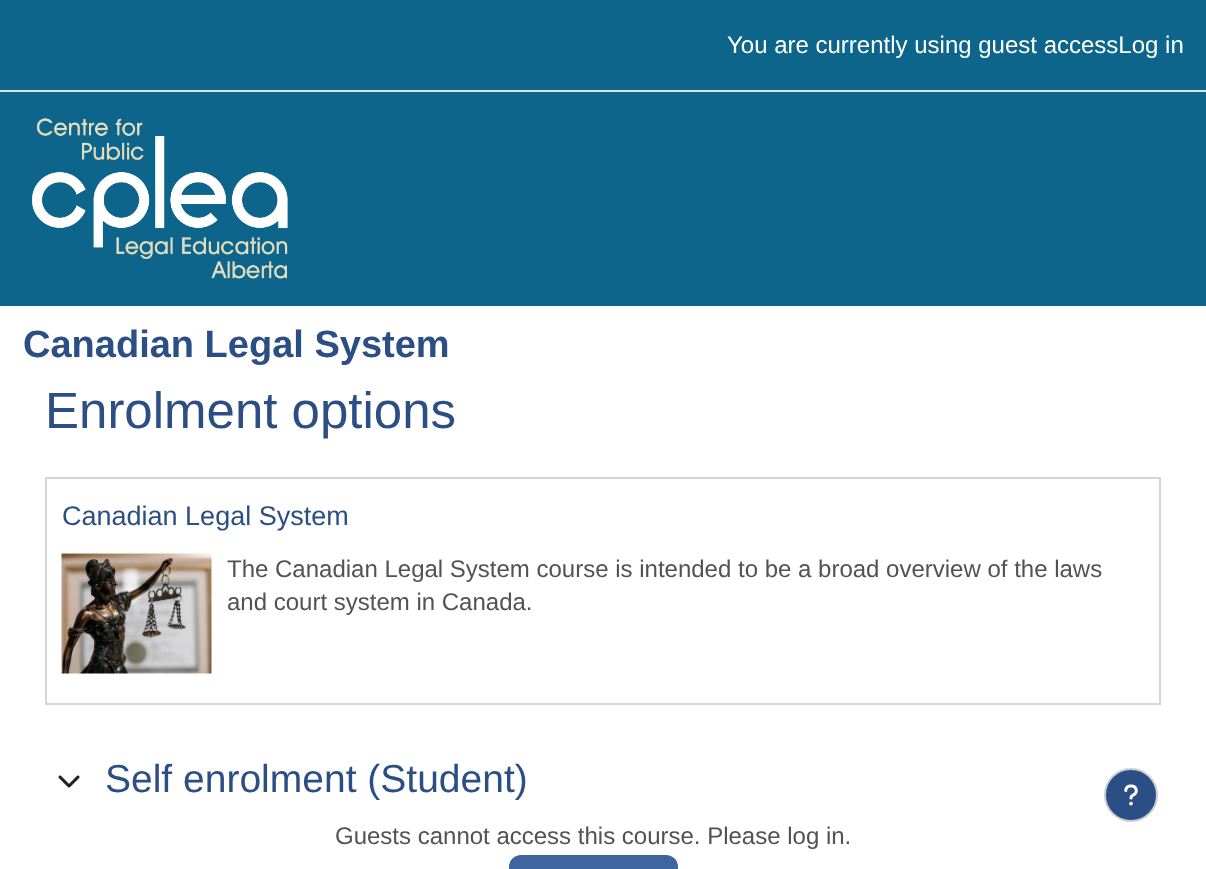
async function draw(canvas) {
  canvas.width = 1206;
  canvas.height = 869;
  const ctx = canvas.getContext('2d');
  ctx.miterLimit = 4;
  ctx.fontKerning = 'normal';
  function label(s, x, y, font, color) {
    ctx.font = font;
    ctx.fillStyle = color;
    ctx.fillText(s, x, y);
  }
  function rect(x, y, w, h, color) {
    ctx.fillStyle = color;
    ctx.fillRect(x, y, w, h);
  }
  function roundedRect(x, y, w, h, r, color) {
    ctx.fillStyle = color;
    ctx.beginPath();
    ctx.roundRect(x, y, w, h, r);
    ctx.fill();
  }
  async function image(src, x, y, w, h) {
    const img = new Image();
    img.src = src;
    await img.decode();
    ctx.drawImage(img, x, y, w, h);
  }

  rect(0, 0, 1206, 869, '#fff');
  rect(0, 0, 1206, 90, '#0d658b');
  rect(0, 90, 1206, 2, '#dee2e6');
  label('You are currently using guest accessLog in', 727, 53, '24px Liberation Sans', '#fff');
  rect(0, 92, 1206, 214, '#0d658b');
  await image('assets/img1.png', 32, 118, 256, 161);
  label('Canadian Legal System', 23, 357, 'bold 38px Liberation Sans', '#2b4e84');
  label('Enrolment options', 45, 428, '51px Liberation Sans', '#2b4e84');
  ctx.strokeStyle = '#d4d4d4';
  ctx.lineWidth = 2;
  ctx.strokeRect(46, 478, 1114, 226);
  label('Canadian Legal System', 62, 525, '27px Liberation Sans', '#2b4e84');
  await image('assets/img2.png', 61, 553, 151, 121);
  label('The Canadian Legal System course is intended to be a broad overview of the laws', 227, 577, '24px Liberation Sans', '#545251');
  label('and court system in Canada.', 227, 610, '24px Liberation Sans', '#545251');
  await image('assets/img3.png', 58, 775, 22, 13);
  label('Self enrolment (Student)', 105, 792, '39px Liberation Sans', '#2b4e84');
  label('Guests cannot access this course. Please log in.', 335, 844, '24px Liberation Sans', '#545251');
  roundedRect(509, 855, 169, 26, 12, '#3e65a0');
  ctx.fillStyle = '#2b4e84';
  ctx.beginPath();
  ctx.arc(1131, 795, 26, 0, 2 * Math.PI);
  ctx.fill();
  ctx.strokeStyle = '#cdcdcd';
  ctx.stroke();
  await image('assets/img4.png', 1124, 784, 14, 22);
}

draw(document.querySelector('canvas'));
